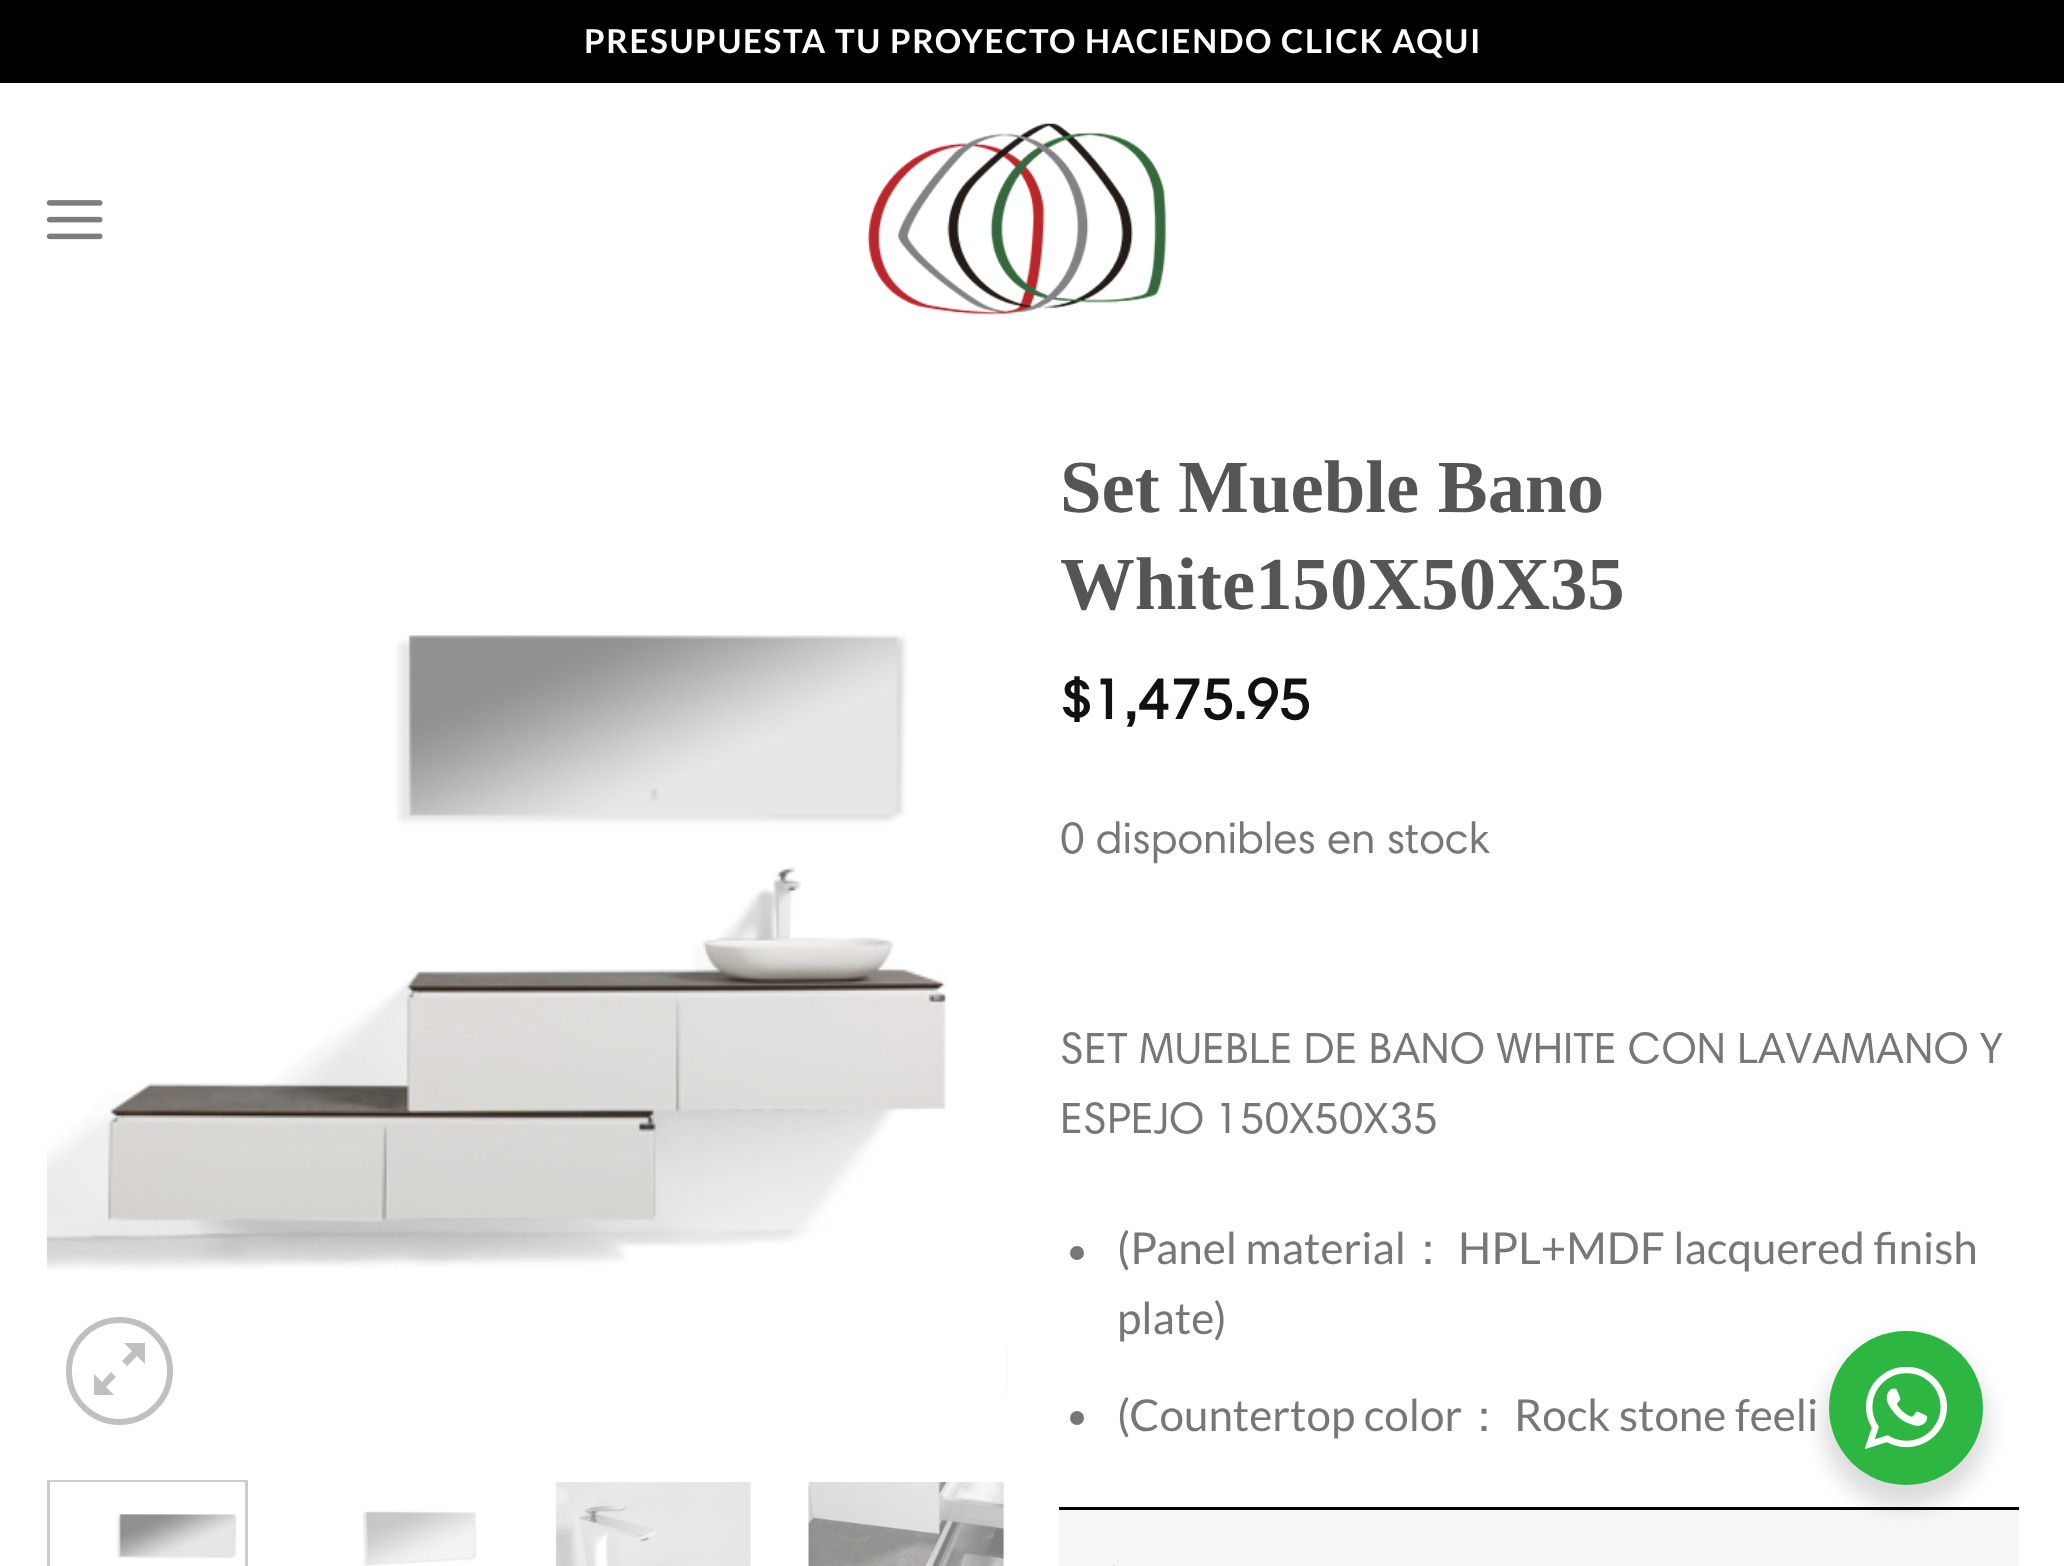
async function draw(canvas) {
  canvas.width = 2064;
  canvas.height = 1566;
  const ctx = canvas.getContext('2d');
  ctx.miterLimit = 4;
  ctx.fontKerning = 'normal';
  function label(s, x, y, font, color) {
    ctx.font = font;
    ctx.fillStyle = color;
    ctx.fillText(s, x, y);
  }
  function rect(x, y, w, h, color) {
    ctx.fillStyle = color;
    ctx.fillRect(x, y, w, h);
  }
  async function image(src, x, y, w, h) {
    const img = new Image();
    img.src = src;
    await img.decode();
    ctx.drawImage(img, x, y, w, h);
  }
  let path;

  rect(0, 0, 2064, 1566, '#fff');
  rect(0, 0, 2064, 83, '#000');
  ctx.letterSpacing = '1.65px';
  label('PRESUPUESTA TU PROYECTO HACIENDO CLICK AQUI', 584, 53, 'bold 33px Lato', '#fff');
  await image('assets/img1.png', 46, 200, 57, 40);
  await image('assets/img2.png', 867, 123, 300, 192);
  await image('assets/img3.png', 47, 635, 899, 636);
  await image('assets/img4.png', 1006, 1342, 1, 55);
  ctx.beginPath();
  ctx.roundRect(69, 1320, 101, 102, 50.5);
  ctx.strokeStyle = '#c0c0c0';
  ctx.lineWidth = 6;
  ctx.stroke();
  ctx.fillStyle = '#c0c0c0';
  path = new Path2D('M145 1343V1364L137 1356L127 1366L122 1361L132 1351L124 1343ZM116 1377L106 1387L114 1395H94V1374L102 1382L111 1372Z');
  ctx.fill(path);
  ctx.strokeStyle = '#ccc';
  ctx.lineWidth = 3;
  ctx.strokeRect(48.5, 1481.5, 198, 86);
  await image('assets/img5.png', 50, 1482, 195, 77);
  await image('assets/img6.png', 362, 1511, 115, 55);
  await image('assets/img7.png', 556, 1482, 195, 84);
  await image('assets/img8.png', 808, 1482, 197, 84);
  ctx.letterSpacing = '0px';
  label('Set Mueble Bano', 1060, 512, 'bold 74.75px Liberation Serif', '#555');
  label('White150X50X35', 1060, 609, 'bold 74.75px Liberation Serif', '#555');
  label('$1,475.95', 1060, 719, 'bold 57px "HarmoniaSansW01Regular"', '#111');
  label('0 disponibles en stock', 1060, 853, '44px "HarmoniaSansW01Regular"', '#777');
  label('SET MUEBLE DE BANO WHITE CON LAVAMANO Y', 1060, 1063, '44px "HarmoniaSansW01Regular"', '#777');
  label('ESPEJO 150X50X35', 1060, 1133, '44px "HarmoniaSansW01Regular"', '#777');
  ctx.beginPath();
  ctx.arc(1077, 1253, 7, 0, 2 * Math.PI);
  ctx.fill();
  label('(Panel material', 1117, 1264, '44px Lato', '#777');
  label('：', 1406, 1264, '500 44px WenQuanYi Zen Hei', '#777');
  label('HPL+MDF lacquered finish', 1458, 1264, '44px Lato', '#777');
  label('plate)', 1117, 1334, '44px Lato', '#777');
  ctx.beginPath();
  ctx.arc(1077, 1418, 7, 0, 2 * Math.PI);
  ctx.fill();
  label('(Countertop color', 1117, 1431, '44px Lato', '#777');
  label('：', 1462, 1431, '500 44px WenQuanYi Zen Hei', '#777');
  label('Rock stone feeli', 1514, 1431, '44px Lato', '#777');
  rect(1059, 1510, 960, 56, '#f7f7f7');
  rect(1059, 1507, 960, 3, '#000');
  await image('assets/img9.png', 1113, 1565, 2, 1);
  ctx.fillStyle = '#00000024';
  ctx.filter = 'blur(11px)';
  ctx.beginPath();
  ctx.roundRect(1823, 1342, 165, 165, 82.5);
  ctx.fill();
  ctx.filter = 'none';
  ctx.fillStyle = '#2db742';
  ctx.beginPath();
  ctx.arc(1906, 1408, 77, 0, 2 * Math.PI);
  ctx.fill();
  await image('assets/img10.png', 1865, 1367, 82, 82);
}

draw(document.querySelector('canvas'));
